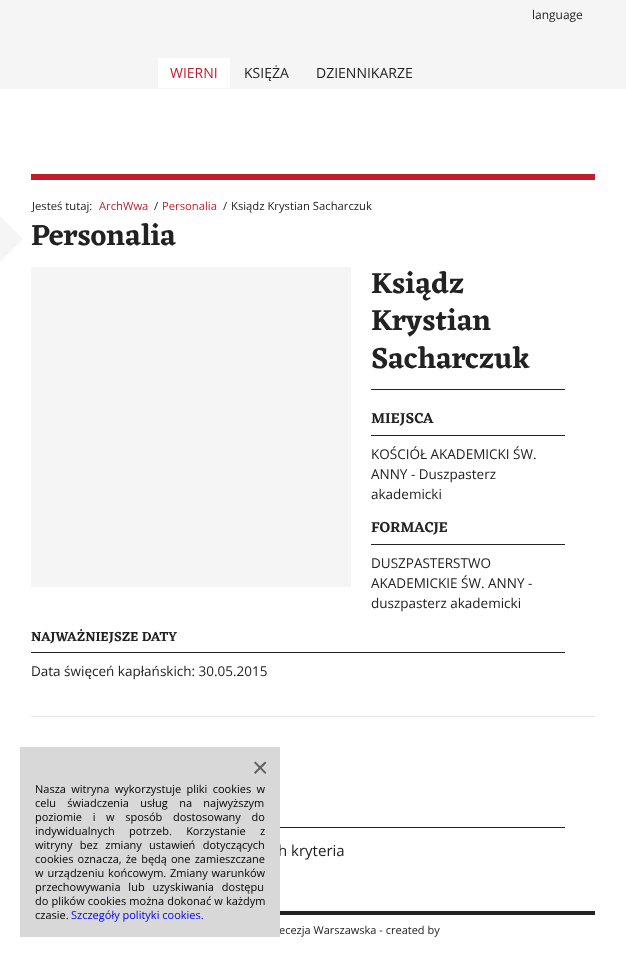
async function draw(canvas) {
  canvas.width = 626;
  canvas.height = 957;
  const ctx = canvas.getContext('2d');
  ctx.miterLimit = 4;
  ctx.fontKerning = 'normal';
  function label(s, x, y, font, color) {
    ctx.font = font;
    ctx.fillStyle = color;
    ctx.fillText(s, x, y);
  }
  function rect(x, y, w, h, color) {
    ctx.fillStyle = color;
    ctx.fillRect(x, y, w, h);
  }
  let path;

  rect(0, 0, 626, 957, '#fff');
  rect(0, 0, 626, 89, '#f5f5f5');
  label('language', 532, 19, '12px Open Sans', '#222');
  rect(158, 58, 72, 30, '#fff');
  label('WIERNI', 170, 78, '14px Open Sans', '#bf1e2c');
  label('KSIĘŻA', 244, 78, '14px Open Sans', '#222');
  label('DZIENNIKARZE', 316, 78, '14px Open Sans', '#222');
  rect(31, 174, 564, 6, '#bf1e2c');
  label('Jesteś tutaj:', 32, 210, '11.25px Open Sans', '#222');
  label('ArchWwa', 99, 210, '11.25px Open Sans', '#bf1e2c');
  label('/', 154, 210, '11.25px Open Sans', '#222');
  label('Personalia', 162, 210, '11.25px Open Sans', '#bf1e2c');
  label('/', 223, 210, '11.25px Open Sans', '#222');
  label('Ksiądz Krystian Sacharczuk', 231, 210, '11.25px Open Sans', '#222');
  ctx.fillStyle = '#f5f5f5';
  path = new Path2D('M-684-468L23 239L-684 946L-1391 239Z');
  ctx.fill(path);
  label('Personalia', 31, 245, '600 30px Eczar', '#222');
  rect(31, 716, 564, 1, '#e6e6e6');
  rect(31, 267, 320, 320, '#f5f5f5');
  rect(371, 389, 194, 1, '#222');
  label('Ksiądz', 371, 293, '600 30px Eczar', '#222');
  label('Krystian', 371, 330, '600 30px Eczar', '#222');
  label('Sacharczuk', 371, 368, '600 30px Eczar', '#222');
  rect(371, 435, 194, 1, '#222');
  label('MIEJSCA', 371, 423, '600 15px Eczar', '#222');
  label('KOŚCIÓŁ AKADEMICKI ŚW.', 371, 459, '13.5px Open Sans', '#222');
  label('ANNY - Duszpasterz', 371, 479, '13.5px Open Sans', '#222');
  label('akademicki', 371, 499, '13.5px Open Sans', '#222');
  rect(371, 544, 194, 1, '#222');
  label('FORMACJE', 371, 532, '600 15px Eczar', '#222');
  label('DUSZPASTERSTWO', 371, 568, '13.5px Open Sans', '#222');
  label('AKADEMICKIE ŚW. ANNY -', 371, 588, '13.5px Open Sans', '#222');
  label('duszpasterz akademicki', 371, 608, '13.5px Open Sans', '#222');
  rect(31, 652, 534, 1, '#222');
  label('NAJWAŻNIEJSZE DATY', 31, 641, '600 13.5px Eczar', '#222');
  label('Data święceń kapłańskich: 30.05.2015', 31, 676, '13.5px Open Sans', '#222');
  rect(280, 827, 285, 1, '#222');
  label('h kryteria', 278, 856, '15px Open Sans', '#222');
  rect(280, 911, 315, 4, '#222');
  label('ecezja Warszawska - created by', 279, 934, '11px Open Sans', '#222');
  rect(20, 747, 260, 190, '#d8d8d8');
  label('×', 252, 777, '28px Liberation Sans', '#626262');
  ctx.wordSpacing = '2.5px';
  label('Nasza witryna wykorzystuje pliki cookies w', 35, 793, '11px Open Sans', '#000');
  ctx.wordSpacing = '8.5px';
  label('celu świadczenia usług na najwyższym', 35, 807, '11px Open Sans', '#000');
  ctx.wordSpacing = '7.75px';
  label('poziomie i w sposób dostosowany do', 35, 821, '11px Open Sans', '#000');
  ctx.wordSpacing = '11.5px';
  label('indywidualnych potrzeb. Korzystanie z', 35, 835, '11px Open Sans', '#000');
  ctx.wordSpacing = '4.5px';
  label('witryny bez zmiany ustawień dotyczących', 35, 849, '11px Open Sans', '#000');
  ctx.wordSpacing = '1.25px';
  label('cookies oznacza, że będą one zamieszczane', 35, 863, '11px Open Sans', '#000');
  ctx.wordSpacing = '1px';
  label('w urządzeniu końcowym. Zmiany warunków', 35, 877, '11px Open Sans', '#000');
  ctx.wordSpacing = '5px';
  label('przechowywania lub uzyskiwania dostępu', 35, 891, '11px Open Sans', '#000');
  ctx.wordSpacing = '0.25px';
  label('do plików cookies można dokonać w każdym', 35, 905, '11px Open Sans', '#000');
  ctx.wordSpacing = '0px';
  label('czasie.', 35, 919, '11px Open Sans', '#000');
  label('Szczegóły polityki cookies.', 71, 919, '11px Open Sans', '#00e');
}

draw(document.querySelector('canvas'));
